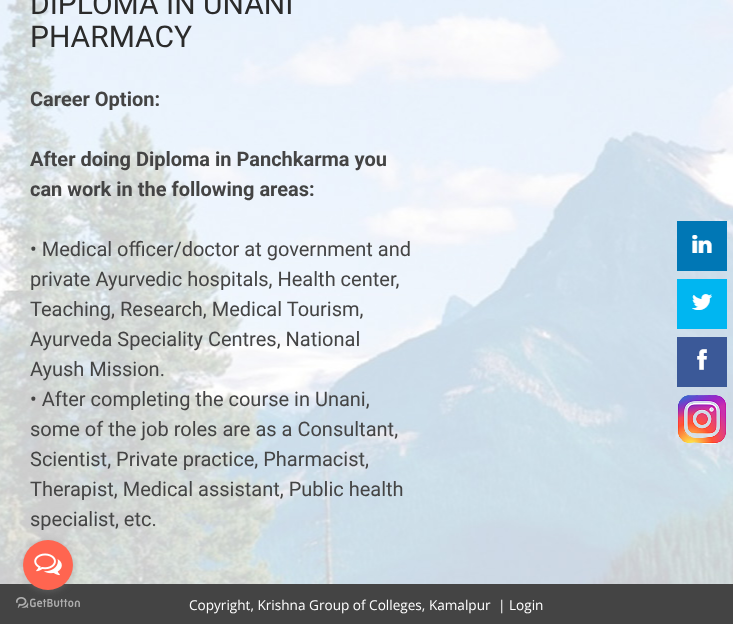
async function draw(canvas) {
  canvas.width = 733;
  canvas.height = 624;
  const ctx = canvas.getContext('2d');
  ctx.miterLimit = 4;
  ctx.fontKerning = 'normal';
  function label(s, x, y, font, color) {
    ctx.font = font;
    ctx.fillStyle = color;
    ctx.fillText(s, x, y);
  }
  function rect(x, y, w, h, color) {
    ctx.fillStyle = color;
    ctx.fillRect(x, y, w, h);
  }
  async function image(src, x, y, w, h) {
    const img = new Image();
    img.src = src;
    await img.decode();
    ctx.drawImage(img, x, y, w, h);
  }

  rect(0, 0, 733, 624, '#fff');
  await image('assets/img1.png', 0, 0, 733, 584);
  label('DIPLOMA IN UNANI', 30, 14, '30px Roboto', '#2b2b2b');
  label('PHARMACY', 30, 47, '30px Roboto', '#2b2b2b');
  label('Career Option:', 30, 106, 'bold 20px Roboto', '#444');
  label('After doing Diploma in Panchkarma you', 30, 166, 'bold 20px Roboto', '#444');
  label('can work in the following areas:', 30, 196, 'bold 20px Roboto', '#444');
  label('• Medical officer/doctor at government and', 30, 256, '20px Roboto', '#444');
  label('private Ayurvedic hospitals, Health center,', 30, 286, '20px Roboto', '#444');
  label('Teaching, Research, Medical Tourism,', 30, 316, '20px Roboto', '#444');
  label('Ayurveda Speciality Centres, National', 30, 346, '20px Roboto', '#444');
  label('Ayush Mission.', 30, 376, '20px Roboto', '#444');
  label('• After completing the course in Unani,', 30, 406, '20px Roboto', '#444');
  label('some of the job roles are as a Consultant,', 30, 436, '20px Roboto', '#444');
  label('Scientist, Private practice, Pharmacist,', 30, 466, '20px Roboto', '#444');
  label('Therapist, Medical assistant, Public health', 30, 496, '20px Roboto', '#444');
  label('specialist, etc.', 30, 526, '20px Roboto', '#444');
  await image('assets/img2.png', 677, 221, 50, 50);
  await image('assets/img3.png', 677, 279, 50, 50);
  await image('assets/img4.png', 677, 337, 50, 50);
  await image('assets/img5.png', 678, 395, 49, 49);
  rect(0, 584, 733, 40, '#444');
  label('Copyright, Krishna Group of Colleges, Kamalpur', 189, 610, '13.6px Open Sans', '#fff');
  label('| Login', 498, 610, '13.6px Open Sans', '#fff');
  await image('assets/img7.png', 16, 597, 64, 11);
  ctx.fillStyle = '#88888866';
  ctx.filter = 'blur(3.5px)';
  ctx.beginPath();
  ctx.roundRect(23, 541, 50, 50, 25);
  ctx.fill();
  ctx.filter = 'none';
  ctx.fillStyle = '#ff6550';
  ctx.beginPath();
  ctx.arc(48, 565, 25, 0, 2 * Math.PI);
  ctx.fill();
  await image('assets/img6.png', 34, 553, 28, 23);
}

draw(document.querySelector('canvas'));
